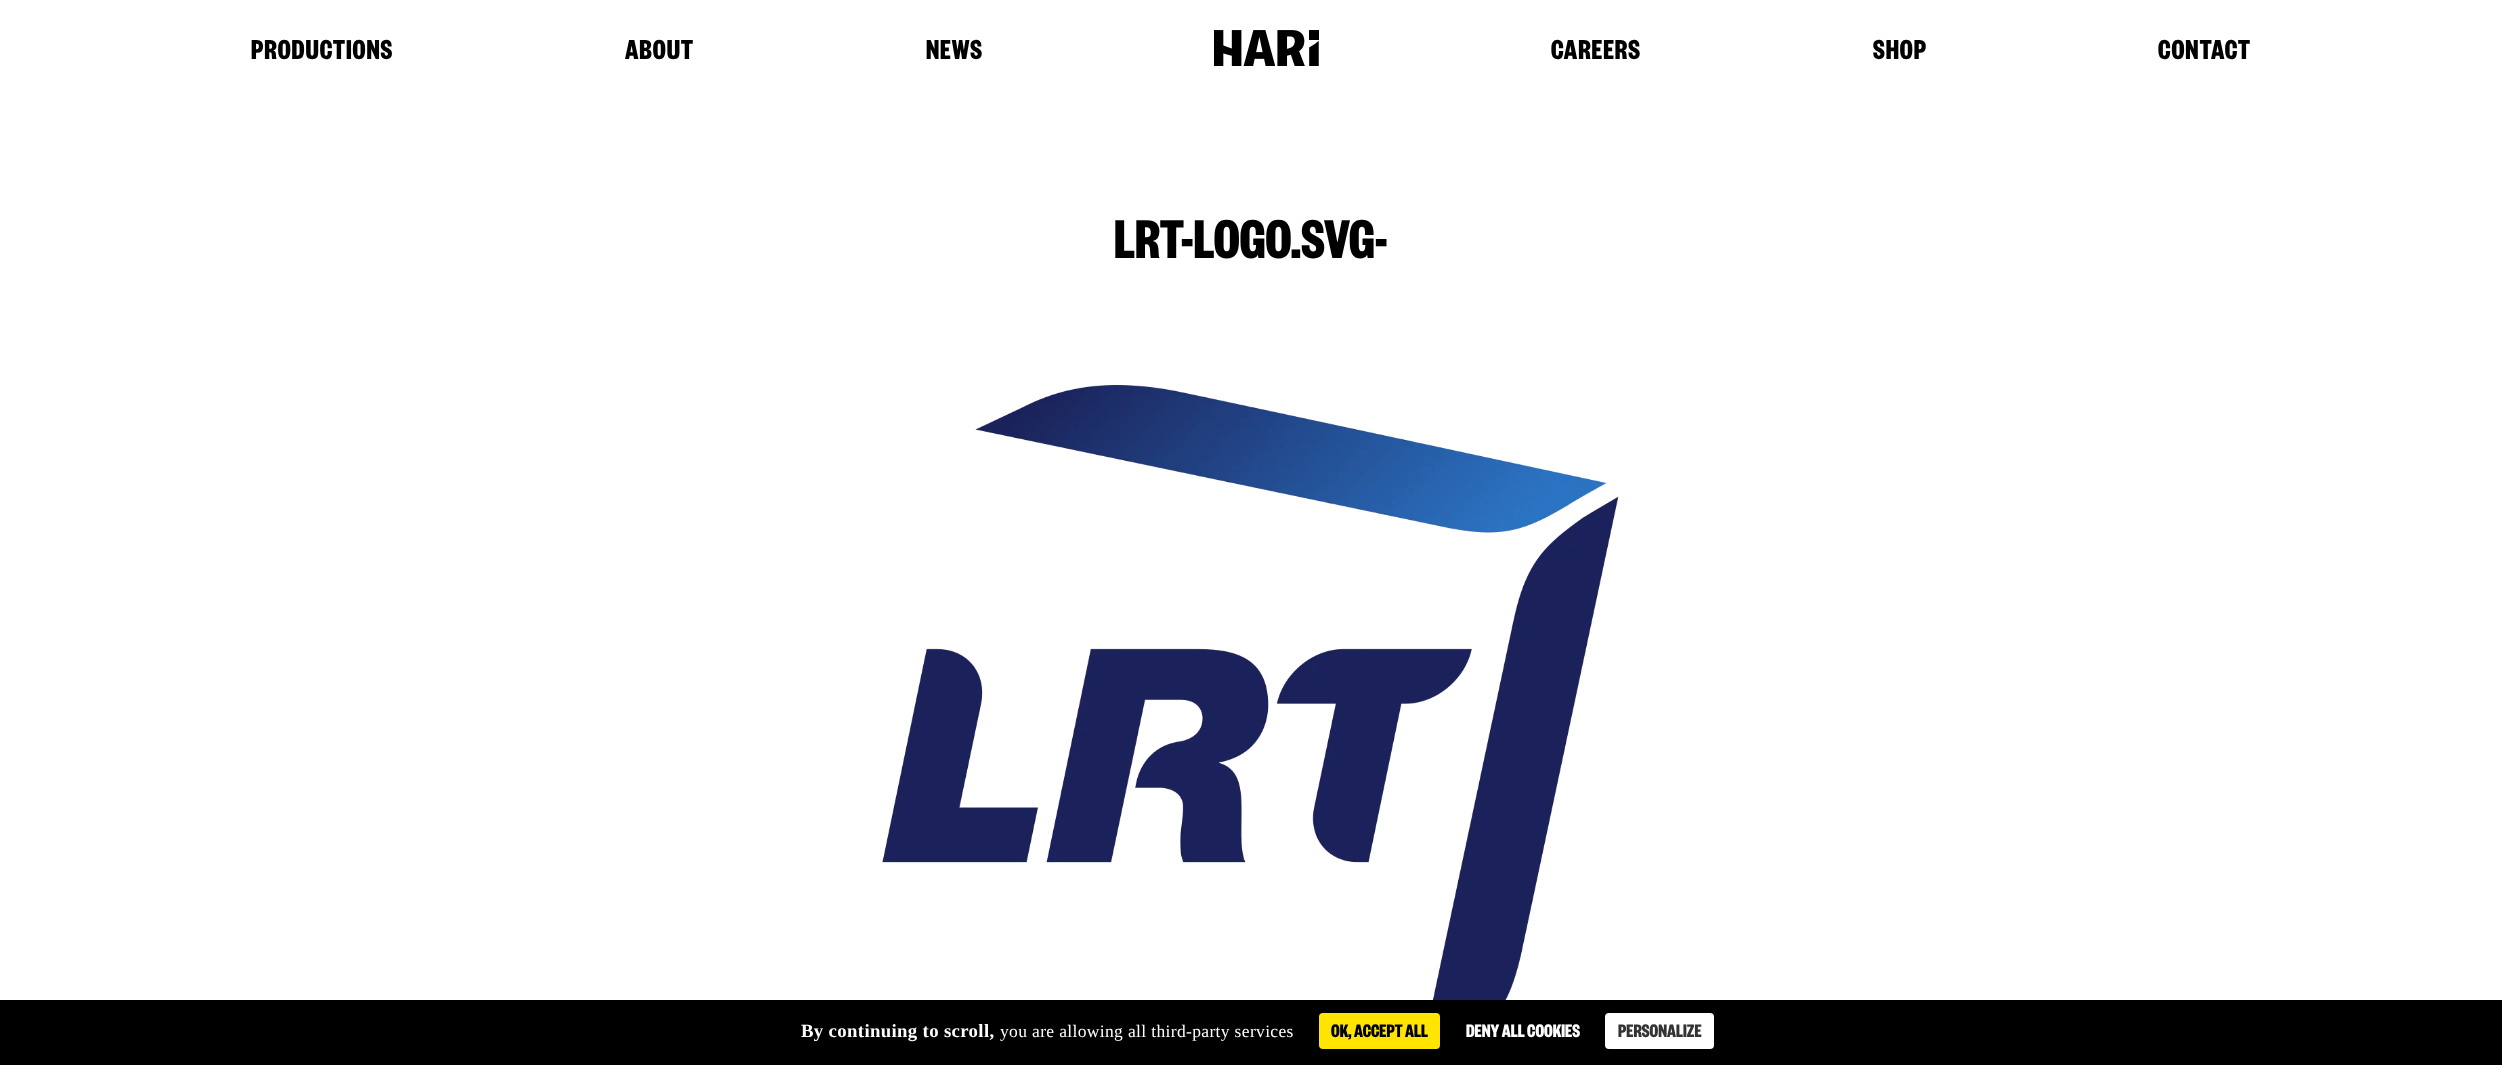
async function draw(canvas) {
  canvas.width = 2502;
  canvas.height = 1065;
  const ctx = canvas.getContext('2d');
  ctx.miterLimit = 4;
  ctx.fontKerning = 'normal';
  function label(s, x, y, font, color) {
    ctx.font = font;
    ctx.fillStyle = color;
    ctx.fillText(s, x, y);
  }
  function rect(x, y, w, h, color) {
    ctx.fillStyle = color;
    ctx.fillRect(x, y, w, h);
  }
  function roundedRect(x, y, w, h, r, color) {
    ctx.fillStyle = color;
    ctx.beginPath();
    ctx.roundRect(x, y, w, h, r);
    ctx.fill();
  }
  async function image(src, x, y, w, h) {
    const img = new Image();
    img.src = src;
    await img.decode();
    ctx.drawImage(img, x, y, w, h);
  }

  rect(0, 0, 2502, 1065, '#fff');
  ctx.letterSpacing = '0.9px';
  label('PRODUCTIONS', 251, 59, 'bold 30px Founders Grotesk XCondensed', '#000');
  label('ABOUT', 625, 59, 'bold 30px Founders Grotesk XCondensed', '#000');
  label('NEWS', 926, 59, 'bold 30px Founders Grotesk XCondensed', '#000');
  await image('assets/img1.png', 1214, 30, 105, 36);
  label('CAREERS', 1551, 59, 'bold 30px Founders Grotesk XCondensed', '#000');
  label('SHOP', 1873, 59, 'bold 30px Founders Grotesk XCondensed', '#000');
  label('CONTACT', 2158, 59, 'bold 30px Founders Grotesk XCondensed', '#000');
  ctx.letterSpacing = '0px';
  label('LRT-LOGO.SVG-', 1114, 258, 'bold 60px Founders Grotesk XCondensed', '#000');
  await image('assets/img2.png', 882, 385, 737, 615);
  rect(0, 1000, 2502, 65, '#000');
  ctx.letterSpacing = '0.35px';
  label('By continuing to scroll,', 801, 1037, 'bold 18.75px Liberation Serif', '#fff');
  label('you are allowing all third-party services', 1000, 1037, '17.5px Liberation Serif', '#fff');
  roundedRect(1319, 1013, 121, 36, 4, '#ffe500');
  ctx.letterSpacing = '0px';
  label('OK, ACCEPT ALL', 1331, 1037, 'bold 20px Founders Grotesk XCondensed', '#000');
  label('DENY ALL COOKIES', 1466, 1037, 'bold 20px Founders Grotesk XCondensed', '#fff');
  roundedRect(1605, 1013, 109, 36, 4, '#fff');
  label('PERSONALIZE', 1618, 1037, 'bold 20px Founders Grotesk XCondensed', '#333');
}

draw(document.querySelector('canvas'));
